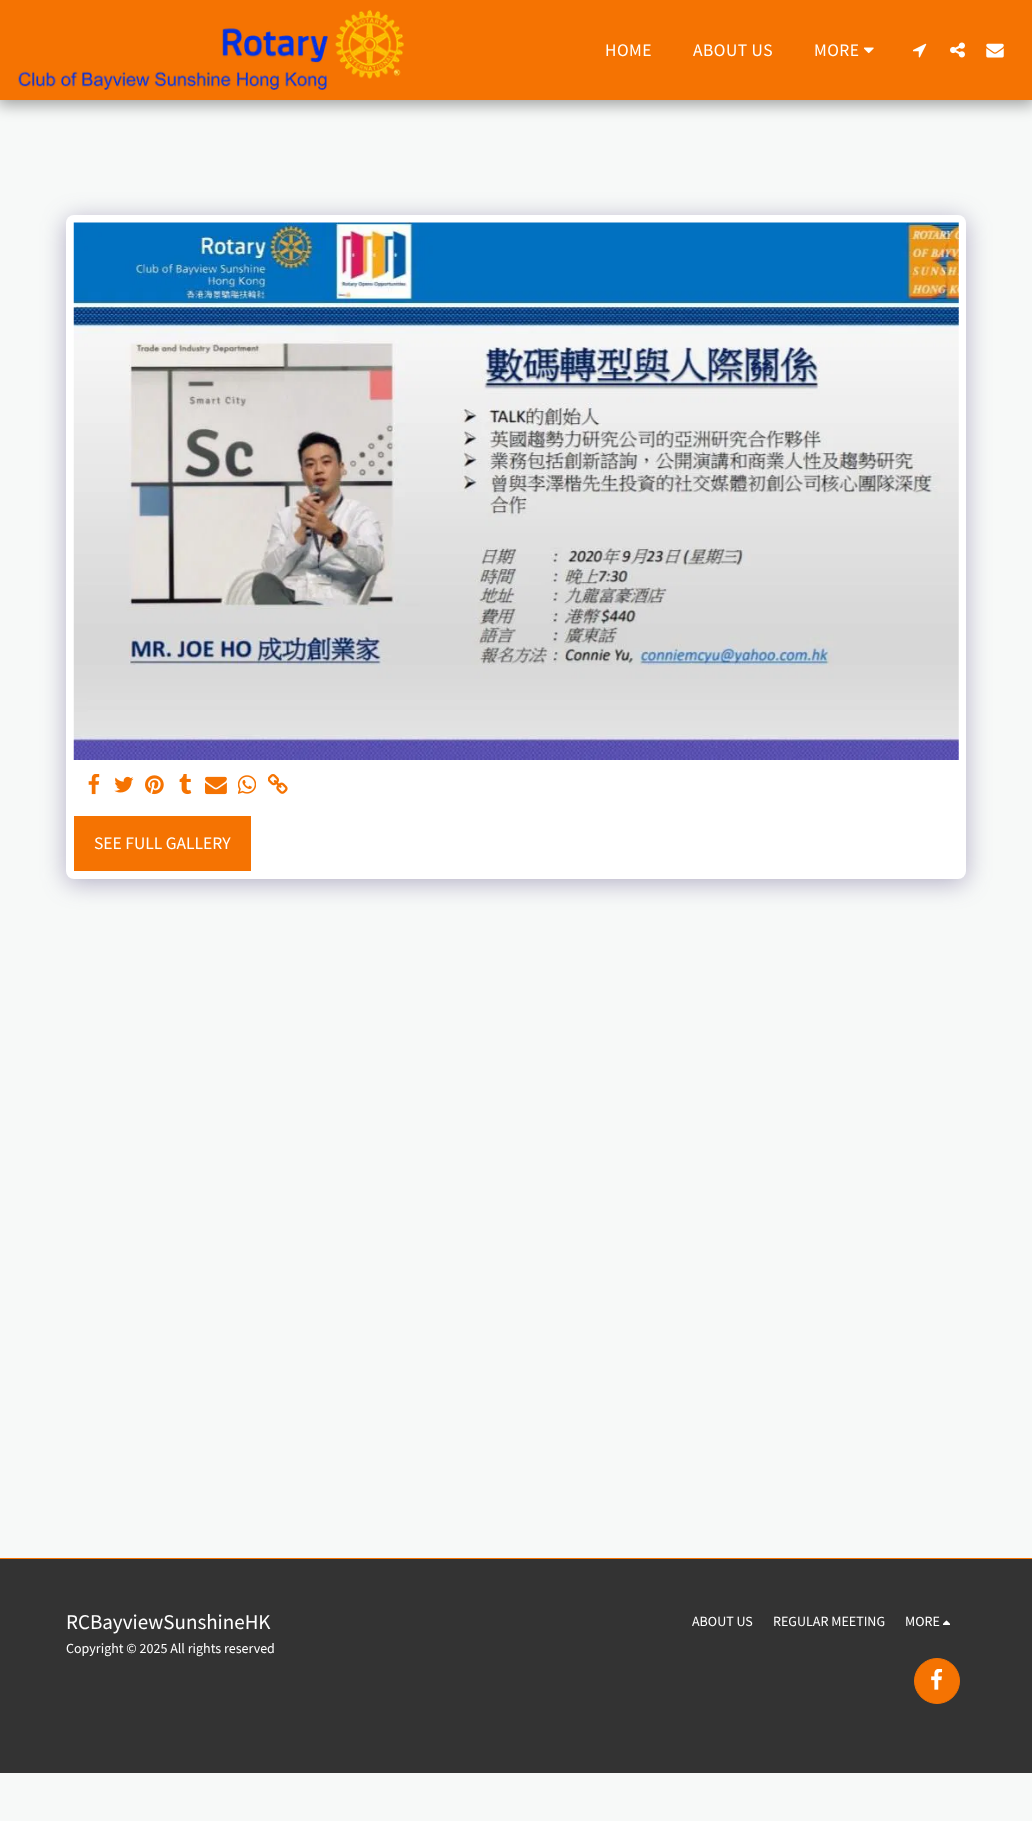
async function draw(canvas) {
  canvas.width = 1032;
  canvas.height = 1821;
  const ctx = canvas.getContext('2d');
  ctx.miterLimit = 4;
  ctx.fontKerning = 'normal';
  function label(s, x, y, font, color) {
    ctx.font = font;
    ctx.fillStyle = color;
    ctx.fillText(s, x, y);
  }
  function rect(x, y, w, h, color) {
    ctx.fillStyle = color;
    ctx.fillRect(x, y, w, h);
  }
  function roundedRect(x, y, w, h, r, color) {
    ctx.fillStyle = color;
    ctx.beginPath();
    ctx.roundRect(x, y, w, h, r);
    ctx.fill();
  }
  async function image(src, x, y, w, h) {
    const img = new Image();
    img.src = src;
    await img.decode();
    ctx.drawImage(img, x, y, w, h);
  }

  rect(0, 0, 1032, 1821, '#f7f9f8');
  ctx.fillStyle = '#00000059';
  ctx.filter = 'blur(7.5px)';
  ctx.beginPath();
  ctx.rect(-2, 0, 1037, 105);
  ctx.fill();
  ctx.filter = 'none';
  rect(0, 0, 1032, 100, '#f57302');
  await image('assets/img1.png', 18, 10, 386, 80);
  ctx.letterSpacing = '0.5px';
  label('HOME', 605, 56, '17.5px Source Sans Pro', '#fff');
  label('ABOUT US', 693, 56, '17.5px Source Sans Pro', '#fff');
  label('MORE', 814, 56, '17.5px Source Sans Pro', '#fff');
  await image('assets/img2.png', 864, 47, 10, 7);
  await image('assets/img3.png', 913, 43, 14, 15);
  await image('assets/img4.png', 950, 42, 15, 16);
  await image('assets/img5.png', 986, 43, 18, 15);
  ctx.fillStyle = '#4d3f7a66';
  ctx.filter = 'blur(12.5px)';
  ctx.beginPath();
  ctx.roundRect(66, 219, 900, 664, 8);
  ctx.fill();
  ctx.filter = 'none';
  roundedRect(66, 215, 900, 664, 8, '#fff');
  await image('assets/img6.png', 73, 222, 886, 538);
  await image('assets/img7.png', 88, 774, 12, 21);
  await image('assets/img8.png', 114, 776, 20, 17);
  await image('assets/img9.png', 145, 775, 19, 20);
  await image('assets/img10.png', 179, 774, 13, 21);
  await image('assets/img11.png', 205, 776, 22, 19);
  await image('assets/img12.png', 238, 775, 18, 19);
  await image('assets/img13.png', 268, 774, 20, 20);
  rect(74, 816, 177, 55, '#f57302');
  ctx.letterSpacing = '0px';
  label('SEE FULL GALLERY', 94, 849, '17.5px Source Sans Pro', '#fff');
  rect(0, 1559, 1032, 214, '#333');
  rect(0, 1558, 1032, 1, '#f57302');
  label('RCBayviewSunshineHK', 66, 1629, '21px Source Sans Pro', '#fff');
  label('Copyright © 2025 All rights reserved', 66, 1653, '14px Source Sans Pro', '#fff');
  label('ABOUT US', 692, 1626, '14px Source Sans Pro', '#fff');
  label('REGULAR MEETING', 773, 1626, '14px Source Sans Pro', '#fff');
  label('MORE', 905, 1626, '14px Source Sans Pro', '#fff');
  await image('assets/img14.png', 943, 1620, 7, 5);
  ctx.fillStyle = '#f57302';
  ctx.beginPath();
  ctx.arc(937, 1681, 22.5, 0, 2 * Math.PI);
  ctx.fill();
  ctx.strokeStyle = '#f57302';
  ctx.stroke();
  await image('assets/img15.png', 931, 1669, 12, 21);
}

draw(document.querySelector('canvas'));
